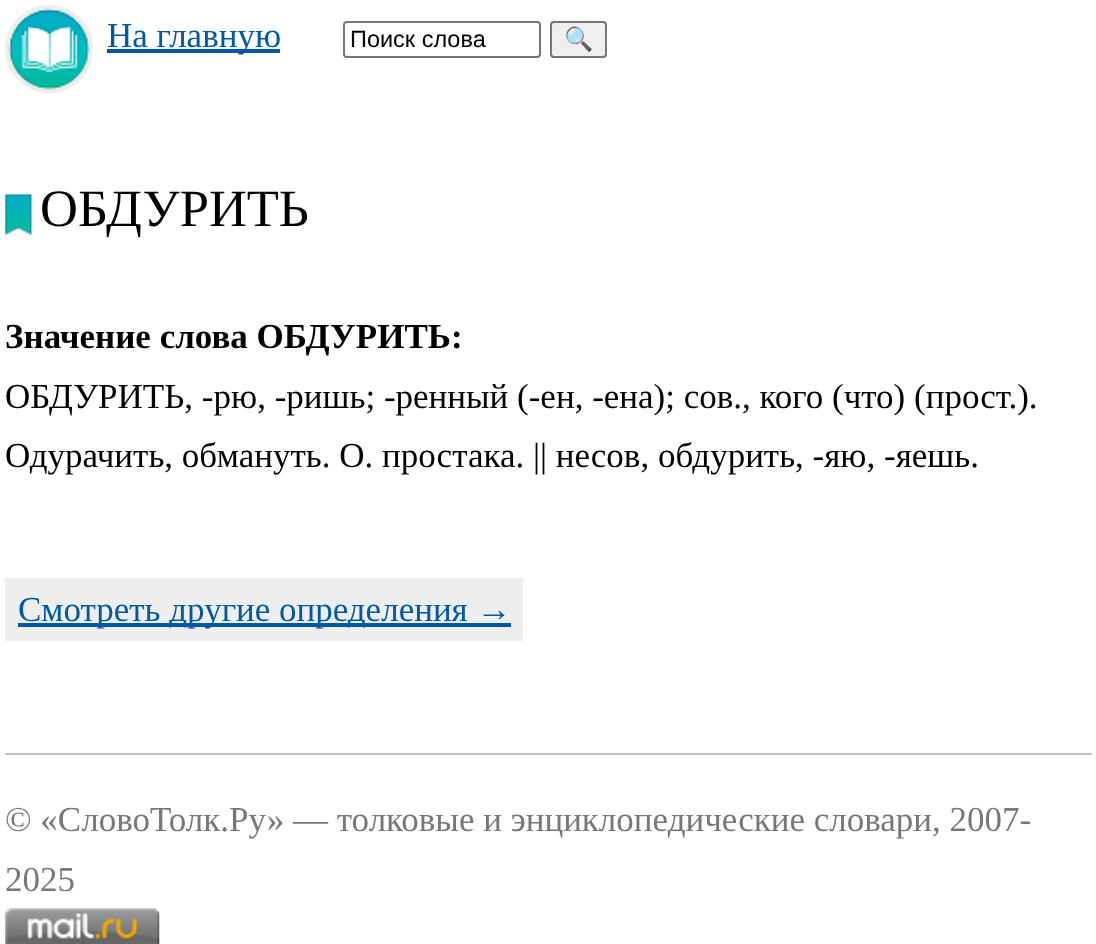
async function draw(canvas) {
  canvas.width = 1096;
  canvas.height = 944;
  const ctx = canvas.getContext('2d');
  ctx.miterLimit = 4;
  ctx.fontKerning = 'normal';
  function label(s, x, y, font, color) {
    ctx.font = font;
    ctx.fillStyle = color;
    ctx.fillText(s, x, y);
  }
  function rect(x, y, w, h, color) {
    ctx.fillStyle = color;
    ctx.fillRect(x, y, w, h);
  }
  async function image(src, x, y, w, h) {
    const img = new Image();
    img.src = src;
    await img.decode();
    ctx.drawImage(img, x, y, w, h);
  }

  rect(0, 0, 1096, 944, '#fff');
  await image('assets/img1.png', 5, 5, 88, 88);
  rect(107, 49, 173, 4, '#0059a7');
  label('На главную', 107, 47, '35px Liberation Serif', '#0059a7');
  ctx.beginPath();
  ctx.roundRect(344, 22, 196, 35, 3);
  ctx.strokeStyle = '#767676';
  ctx.lineWidth = 2;
  ctx.stroke();
  label('Поиск слова', 350, 47, '23.5px Liberation Sans', '#000');
  ctx.fillStyle = '#efefef';
  ctx.beginPath();
  ctx.roundRect(551, 22, 55, 35, 3);
  ctx.fill();
  ctx.stroke();
  label('🔍', 564, 47, '23.5px Noto Color Emoji', '#000');
  await image('assets/img2.png', 5, 193, 27, 42);
  label('ОБДУРИТЬ', 40, 226, '52.5px Liberation Serif', '#000');
  label('Значение слова ОБДУРИТЬ:', 5, 348, 'bold 35px Liberation Serif', '#000');
  label('ОБДУРИТЬ, -рю, -ришь; -ренный (-ен, -ена); сов., кого (что) (прост.).', 5, 408, '35px Liberation Serif', '#000');
  label('Одурачить, обмануть. О. простака. || несов, обдурить, -яю, -яешь.', 5, 467, '35px Liberation Serif', '#000');
  rect(5, 578, 518, 63, '#eee');
  rect(18, 623, 493, 4, '#0059a7');
  label('Смотреть другие определения →', 18, 621, '35px Liberation Serif', '#0059a7');
  rect(5, 753, 1087, 2, '#c0c0c0');
  label('© «СловоТолк.Ру» — толковые и энциклопедические словари, 2007-', 5, 831, '35px Liberation Serif', '#777');
  label('2025', 5, 891, '35px Liberation Serif', '#777');
  await image('assets/img3.png', 5, 908, 155, 36);
}

draw(document.querySelector('canvas'));
